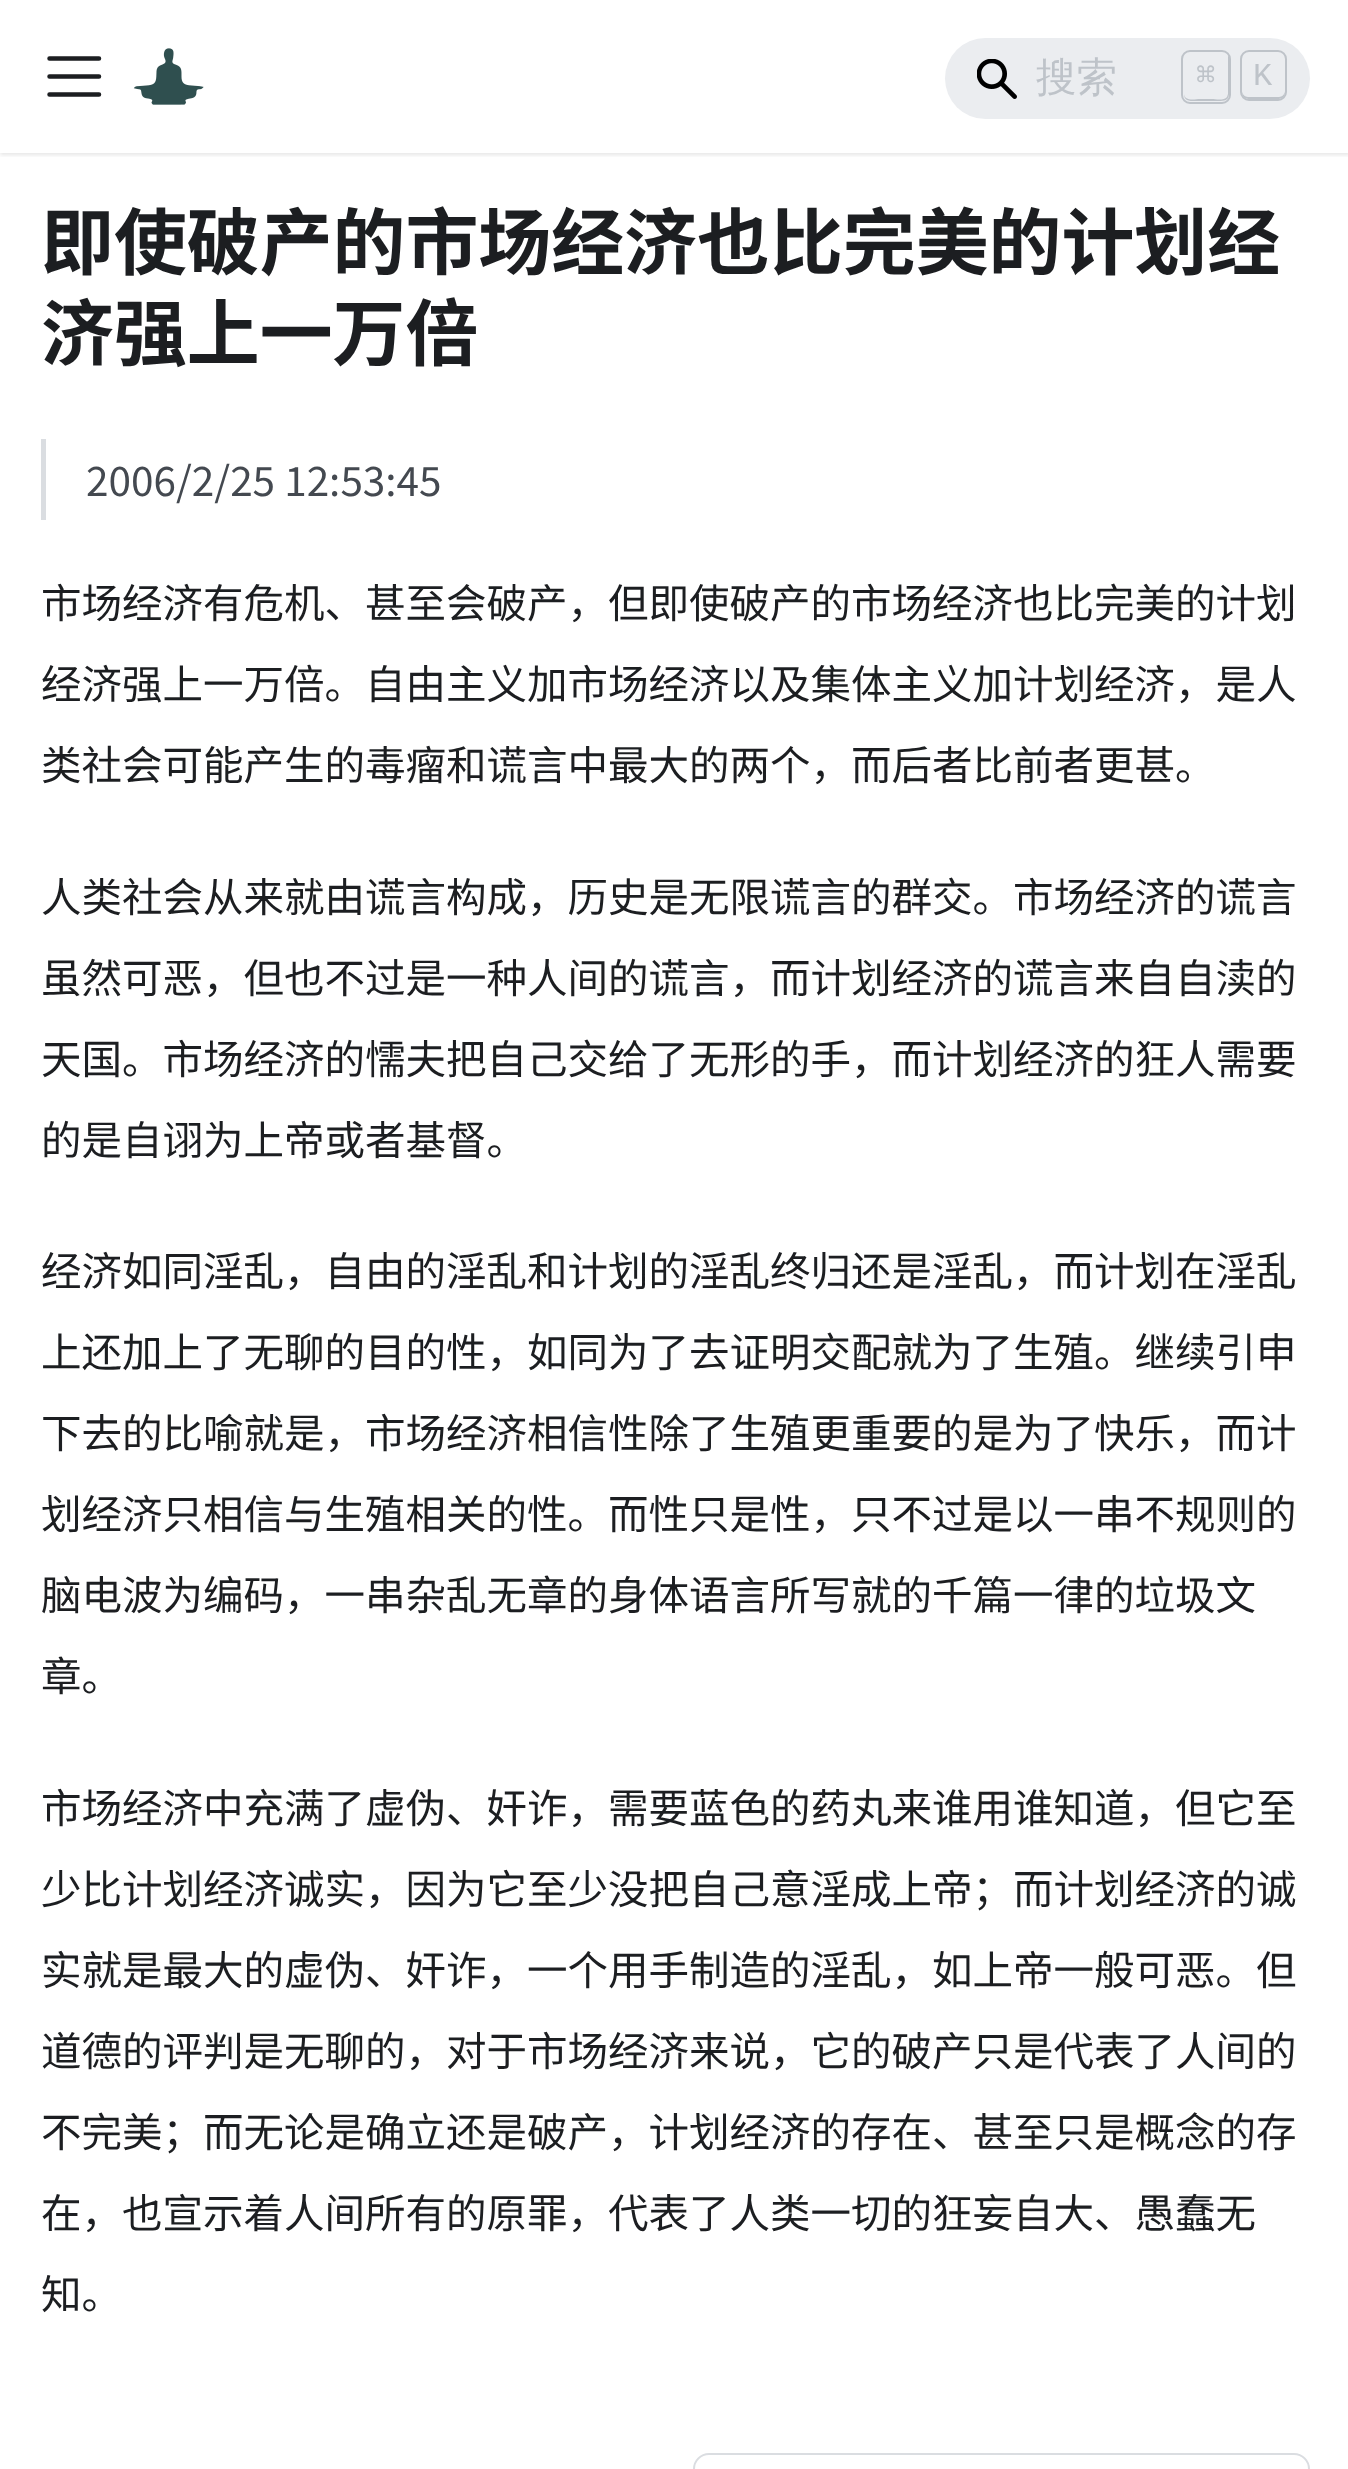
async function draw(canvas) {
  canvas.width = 1348;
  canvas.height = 2469;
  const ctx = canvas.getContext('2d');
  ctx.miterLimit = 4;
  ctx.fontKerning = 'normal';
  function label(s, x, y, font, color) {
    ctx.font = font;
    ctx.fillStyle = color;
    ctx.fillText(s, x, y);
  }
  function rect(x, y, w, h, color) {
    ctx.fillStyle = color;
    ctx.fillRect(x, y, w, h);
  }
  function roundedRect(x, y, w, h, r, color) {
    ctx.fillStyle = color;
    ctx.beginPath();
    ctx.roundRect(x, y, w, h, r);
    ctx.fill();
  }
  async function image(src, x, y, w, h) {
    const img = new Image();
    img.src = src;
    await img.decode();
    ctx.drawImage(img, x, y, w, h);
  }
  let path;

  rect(0, 0, 1348, 2469, '#fff');
  ctx.save();
  ctx.beginPath();
  ctx.rect(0, 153, 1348, 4);
  ctx.clip();
  ctx.fillStyle = '#0000001a';
  ctx.filter = 'blur(2px)';
  ctx.beginPath();
  ctx.rect(0, 2, 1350, 153);
  ctx.fill();
  ctx.filter = 'none';
  ctx.restore();
  path = new Path2D('M49.5 58.5H99M49.5 76.5H99M49.5 94.5H99');
  ctx.strokeStyle = '#1c1e21';
  ctx.lineWidth = 4.5;
  ctx.lineCap = 'round';
  ctx.stroke(path);
  await image('assets/img1.png', 133, 48, 71, 57);
  roundedRect(945, 38, 365, 81, 40.5, '#ebedf0');
  await image('assets/img2.png', 977, 59, 40, 40);
  label('搜索', 1036, 91, '500 40.5px WenQuanYi Zen Hei', '#bec3c9');
  path = new Path2D('M1184 93C1184 101 1188 101 1196 101H1206C1233 101 1229 103 1229 76V64C1229 62 1230 57 1228 55V94L1227 97C1224 101 1215 99 1212 99H1200C1195 99 1184 102 1184 93Z');
  ctx.fill(path);
  ctx.beginPath();
  ctx.roundRect(1182, 51, 48, 52, 8);
  ctx.strokeStyle = '#bec3c9';
  ctx.lineWidth = 2;
  ctx.stroke();
  label('⌘', 1196, 86, '32px DejaVu Sans Mono', '#bec3c9');
  path = new Path2D('M1242 91C1242 99 1246 99 1253 99H1274C1281 99 1285 99 1285 91C1285 94 1282 97 1279 97H1248C1245 97 1242 94 1242 91Z');
  ctx.fill(path);
  ctx.beginPath();
  ctx.roundRect(1241, 51, 45, 49, 8);
  ctx.stroke();
  label('K', 1253, 85, '32px Liberation Mono', '#bec3c9');
  label('即使破产的市场经济也比完美的计划经', 41, 269, 'bold 72.9px Noto Sans SC', '#1c1e21');
  label('济强上一万倍', 41, 360, 'bold 72.9px Noto Sans SC', '#1c1e21');
  rect(41, 439, 5, 81, '#dadde1');
  label('2006/2/25 12:53:45', 86, 496, '40.5px Noto Sans SC', '#444950');
  label('市场经济有危机、甚至会破产，但即使破产的市场经济也比完美的计划', 41, 618, '40.5px Noto Sans SC', '#1c1e21');
  label('经济强上一万倍。自由主义加市场经济以及集体主义加计划经济，是人', 41, 699, '40.5px Noto Sans SC', '#1c1e21');
  label('类社会可能产生的毒瘤和谎言中最大的两个，而后者比前者更甚。', 41, 780, '40.5px Noto Sans SC', '#1c1e21');
  label('人类社会从来就由谎言构成，历史是无限谎言的群交。市场经济的谎言', 41, 912, '40.5px Noto Sans SC', '#1c1e21');
  label('虽然可恶，但也不过是一种人间的谎言，而计划经济的谎言来自自渎的', 41, 993, '40.5px Noto Sans SC', '#1c1e21');
  label('天国。市场经济的懦夫把自己交给了无形的手，而计划经济的狂人需要', 41, 1074, '40.5px Noto Sans SC', '#1c1e21');
  label('的是自诩为上帝或者基督。', 41, 1155, '40.5px Noto Sans SC', '#1c1e21');
  label('经济如同淫乱，自由的淫乱和计划的淫乱终归还是淫乱，而计划在淫乱', 41, 1286, '40.5px Noto Sans SC', '#1c1e21');
  label('上还加上了无聊的目的性，如同为了去证明交配就为了生殖。继续引申', 41, 1367, '40.5px Noto Sans SC', '#1c1e21');
  label('下去的比喻就是，市场经济相信性除了生殖更重要的是为了快乐，而计', 41, 1448, '40.5px Noto Sans SC', '#1c1e21');
  label('划经济只相信与生殖相关的性。而性只是性，只不过是以一串不规则的', 41, 1529, '40.5px Noto Sans SC', '#1c1e21');
  label('脑电波为编码，一串杂乱无章的身体语言所写就的千篇一律的垃圾文', 41, 1610, '40.5px Noto Sans SC', '#1c1e21');
  label('章。', 41, 1691, '40.5px Noto Sans SC', '#1c1e21');
  label('市场经济中充满了虚伪、奸诈，需要蓝色的药丸来谁用谁知道，但它至', 41, 1823, '40.5px Noto Sans SC', '#1c1e21');
  label('少比计划经济诚实，因为它至少没把自己意淫成上帝；而计划经济的诚', 41, 1904, '40.5px Noto Sans SC', '#1c1e21');
  label('实就是最大的虚伪、奸诈，一个用手制造的淫乱，如上帝一般可恶。但', 41, 1985, '40.5px Noto Sans SC', '#1c1e21');
  label('道德的评判是无聊的，对于市场经济来说，它的破产只是代表了人间的', 41, 2066, '40.5px Noto Sans SC', '#1c1e21');
  label('不完美；而无论是确立还是破产，计划经济的存在、甚至只是概念的存', 41, 2147, '40.5px Noto Sans SC', '#1c1e21');
  label('在，也宣示着人间所有的原罪，代表了人类一切的狂妄自大、愚蠢无', 41, 2228, '40.5px Noto Sans SC', '#1c1e21');
  label('知。', 41, 2309, '40.5px Noto Sans SC', '#1c1e21');
  ctx.beginPath();
  ctx.roundRect(694, 2454, 615, 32, 15);
  ctx.strokeStyle = '#dadde1';
  ctx.stroke();
}

draw(document.querySelector('canvas'));
